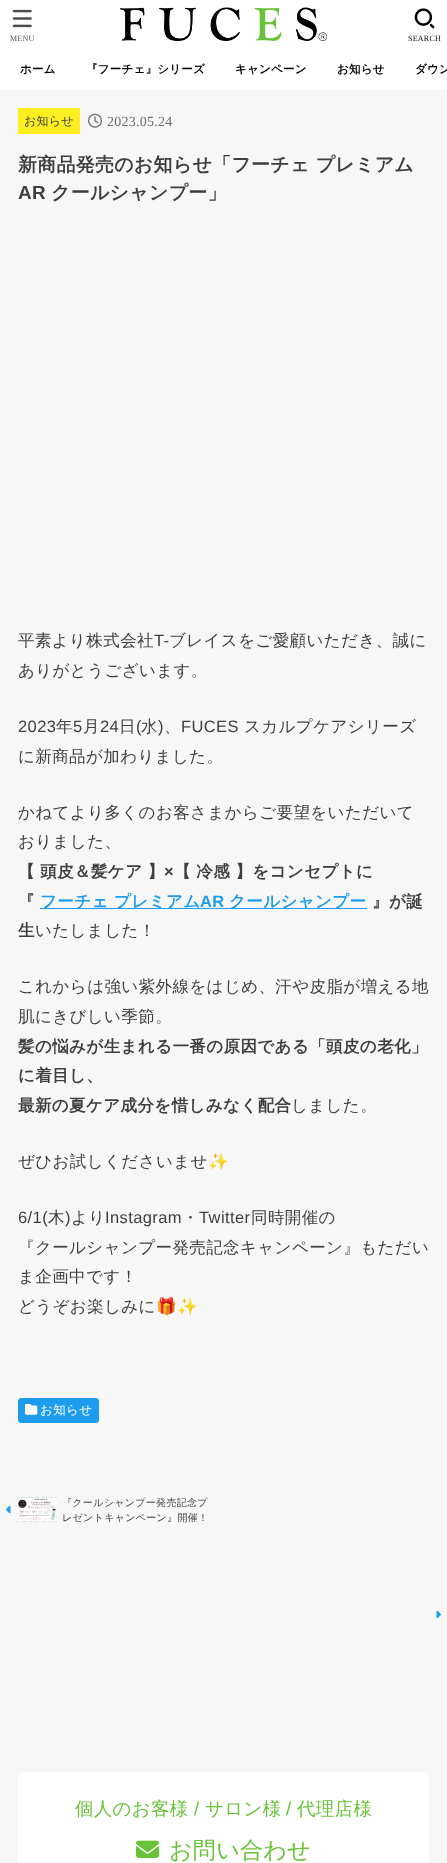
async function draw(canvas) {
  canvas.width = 447;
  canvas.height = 1863;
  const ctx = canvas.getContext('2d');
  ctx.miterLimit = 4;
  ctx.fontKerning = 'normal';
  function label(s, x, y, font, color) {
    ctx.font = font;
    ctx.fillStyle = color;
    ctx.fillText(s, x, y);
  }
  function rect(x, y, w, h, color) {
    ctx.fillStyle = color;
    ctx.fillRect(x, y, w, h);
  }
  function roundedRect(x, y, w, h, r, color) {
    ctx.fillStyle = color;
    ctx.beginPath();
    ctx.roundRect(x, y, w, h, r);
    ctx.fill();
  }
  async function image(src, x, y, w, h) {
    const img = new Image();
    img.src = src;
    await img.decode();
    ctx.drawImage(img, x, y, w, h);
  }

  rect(0, 0, 447, 1863, '#f7f7f7');
  rect(0, 0, 447, 90, '#fff');
  await image('assets/img1.png', 12, 9, 20, 19);
  ctx.letterSpacing = '0.25px';
  label('MENU', 10, 41, '8px Liberation Serif', '#4d4d4d');
  await image('assets/img2.png', 120, 7, 207, 34);
  await image('assets/img3.png', 414, 8, 21, 21);
  label('SEARCH', 408, 41, '8px Liberation Serif', '#000');
  label('ホーム', 20, 73, 'bold 11.5px WenQuanYi Zen Hei', '#000');
  label('『フーチェ』シリーズ', 86, 73, 'bold 11.5px WenQuanYi Zen Hei', '#000');
  label('キャンペーン', 235, 73, 'bold 11.5px WenQuanYi Zen Hei', '#000');
  label('お知らせ', 337, 73, 'bold 11.5px WenQuanYi Zen Hei', '#000');
  label('ダウン', 415, 73, 'bold 11.5px WenQuanYi Zen Hei', '#000');
  rect(18, 108, 62, 26, '#fcee21');
  label('お知らせ', 24, 125, '500 12px WenQuanYi Zen Hei', '#3e3e3e');
  await image('assets/img4.png', 88, 113, 14, 15);
  label('2023.05.24', 107, 126, '14px Liberation Serif', '#6c6c6c');
  ctx.letterSpacing = '0.3px';
  label('新商品発売のお知らせ「フーチェ プレミアム', 18, 171, 'bold 18.95px WenQuanYi Zen Hei', '#3e3e3e');
  label('AR', 18, 199, 'bold 18.95px Liberation Sans', '#3e3e3e');
  label('クールシャンプー」', 51, 199, 'bold 18.95px WenQuanYi Zen Hei', '#3e3e3e');
  ctx.letterSpacing = '0.4px';
  label('平素より株式会社', 18, 646, '500 16.5px WenQuanYi Zen Hei', '#3e3e3e');
  label('T-', 154, 646, '16.5px Liberation Sans', '#3e3e3e');
  label('ブレイスをご愛顧いただき、誠に', 169, 646, '500 16.5px WenQuanYi Zen Hei', '#3e3e3e');
  label('ありがとうございます。', 18, 676, '500 16.5px WenQuanYi Zen Hei', '#3e3e3e');
  label('2023', 18, 732, '16.5px Liberation Sans', '#3e3e3e');
  label('年', 56, 732, '500 16.5px WenQuanYi Zen Hei', '#3e3e3e');
  label('5', 73, 732, '16.5px Liberation Sans', '#3e3e3e');
  label('月', 83, 732, '500 16.5px WenQuanYi Zen Hei', '#3e3e3e');
  label('24', 100, 732, '16.5px Liberation Sans', '#3e3e3e');
  label('日', 119, 732, '500 16.5px WenQuanYi Zen Hei', '#3e3e3e');
  label('(', 136, 732, '16.5px Liberation Sans', '#3e3e3e');
  label('水', 141, 732, '500 16.5px WenQuanYi Zen Hei', '#3e3e3e');
  label(')', 158, 732, '16.5px Liberation Sans', '#3e3e3e');
  label('、', 164, 732, '500 16.5px WenQuanYi Zen Hei', '#3e3e3e');
  label('FUCES', 181, 732, '16.5px Liberation Sans', '#3e3e3e');
  label('スカルプケアシリーズ', 244, 732, '500 16.5px WenQuanYi Zen Hei', '#3e3e3e');
  label('に新商品が加わりました。', 18, 762, '500 16.5px WenQuanYi Zen Hei', '#3e3e3e');
  label('かねてより多くのお客さまからご要望をいただいて', 18, 818, '500 16.5px WenQuanYi Zen Hei', '#3e3e3e');
  label('おりました、', 18, 847, '500 16.5px WenQuanYi Zen Hei', '#3e3e3e');
  label('【 頭皮＆髪ケア 】', 18, 877, 'bold 16.5px WenQuanYi Zen Hei', '#3e3e3e');
  label('×', 164, 877, 'bold 16.5px Liberation Sans', '#3e3e3e');
  label('【 冷感 】をコンセプトに', 174, 877, 'bold 16.5px WenQuanYi Zen Hei', '#3e3e3e');
  label('『', 18, 907, 'bold 16.5px WenQuanYi Zen Hei', '#3e3e3e');
  rect(40, 908, 327, 1, '#1c9bef');
  label('フーチェ プレミアム', 40, 907, 'bold 16.5px WenQuanYi Zen Hei', '#1c9bef');
  label('AR', 200, 907, 'bold 16.5px Liberation Sans', '#1c9bef');
  label('クールシャンプー', 229, 907, 'bold 16.5px WenQuanYi Zen Hei', '#1c9bef');
  label('』が誕', 372, 907, 'bold 16.5px WenQuanYi Zen Hei', '#3e3e3e');
  label('生', 18, 936, 'bold 16.5px WenQuanYi Zen Hei', '#3e3e3e');
  label('いたしました！', 35, 936, '500 16.5px WenQuanYi Zen Hei', '#3e3e3e');
  label('これからは強い紫外線をはじめ、汗や皮脂が増える地', 18, 992, '500 16.5px WenQuanYi Zen Hei', '#3e3e3e');
  label('肌にきびしい季節。', 18, 1022, '500 16.5px WenQuanYi Zen Hei', '#3e3e3e');
  label('髪の悩みが生まれる一番の原因である「頭皮の老化」', 18, 1052, 'bold 16.5px WenQuanYi Zen Hei', '#3e3e3e');
  label('に着目し、', 18, 1081, 'bold 16.5px WenQuanYi Zen Hei', '#3e3e3e');
  label('最新の夏ケア成分を惜しみなく配合', 18, 1111, 'bold 16.5px WenQuanYi Zen Hei', '#3e3e3e');
  label('しました。', 291, 1111, '500 16.5px WenQuanYi Zen Hei', '#3e3e3e');
  label('ぜひお試しくださいませ', 18, 1167, '500 16.5px WenQuanYi Zen Hei', '#3e3e3e');
  label('✨', 208, 1167, '16.5px Noto Color Emoji', '#3e3e3e');
  label('6/1(', 18, 1223, '16.5px Liberation Sans', '#3e3e3e');
  label('木', 48, 1223, '500 16.5px WenQuanYi Zen Hei', '#3e3e3e');
  label(')', 65, 1223, '16.5px Liberation Sans', '#3e3e3e');
  label('より', 71, 1223, '500 16.5px WenQuanYi Zen Hei', '#3e3e3e');
  label('Instagram', 105, 1223, '16.5px Liberation Sans', '#3e3e3e');
  label('・', 182, 1223, '500 16.5px WenQuanYi Zen Hei', '#3e3e3e');
  label('Twitter', 199, 1223, '16.5px Liberation Sans', '#3e3e3e');
  label('同時開催の', 251, 1223, '500 16.5px WenQuanYi Zen Hei', '#3e3e3e');
  label('『クールシャンプー発売記念キャンペーン』もただい', 18, 1253, '500 16.5px WenQuanYi Zen Hei', '#3e3e3e');
  label('ま企画中です！', 18, 1282, '500 16.5px WenQuanYi Zen Hei', '#3e3e3e');
  label('どうぞお楽しみに', 18, 1312, '500 16.5px WenQuanYi Zen Hei', '#3e3e3e');
  label('🎁✨', 156, 1312, '16.5px Noto Color Emoji', '#3e3e3e');
  ctx.fillStyle = '#1c9bef';
  ctx.beginPath();
  ctx.roundRect(18.5, 1398.5, 80, 24, 2.5);
  ctx.fill();
  ctx.strokeStyle = '#1c9bef';
  ctx.stroke();
  await image('assets/img5.png', 25, 1403, 13, 12);
  label('お知らせ', 40, 1414, '500 12.5px WenQuanYi Zen Hei', '#fff');
  await image('assets/img6.png', 6, 1505, 5, 9);
  await image('assets/img7.png', 17, 1497, 40, 25);
  ctx.letterSpacing = '0.3px';
  label('『クールシャンプー発売記念プ', 62, 1506, '500 10px WenQuanYi Zen Hei', '#3e3e3e');
  label('レゼントキャンペーン』開催！', 62, 1521, '500 10px WenQuanYi Zen Hei', '#3e3e3e');
  await image('assets/img8.png', 436, 1610, 5, 9);
  roundedRect(18, 1772, 411, 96, 5, '#fff');
  label('個人のお客様', 75, 1815, '500 18.5px WenQuanYi Zen Hei', '#69c339');
  label('/', 194, 1815, '18.5px Liberation Sans', '#69c339');
  label('サロン様', 205, 1815, '500 18.5px WenQuanYi Zen Hei', '#69c339');
  label('/', 286, 1815, '18.5px Liberation Sans', '#69c339');
  label('代理店様', 297, 1815, '500 18.5px WenQuanYi Zen Hei', '#69c339');
  await image('assets/img9.png', 136, 1840, 24, 18);
  label('お問い合わせ', 169, 1858, '500 23px WenQuanYi Zen Hei', '#69c339');
}

draw(document.querySelector('canvas'));
